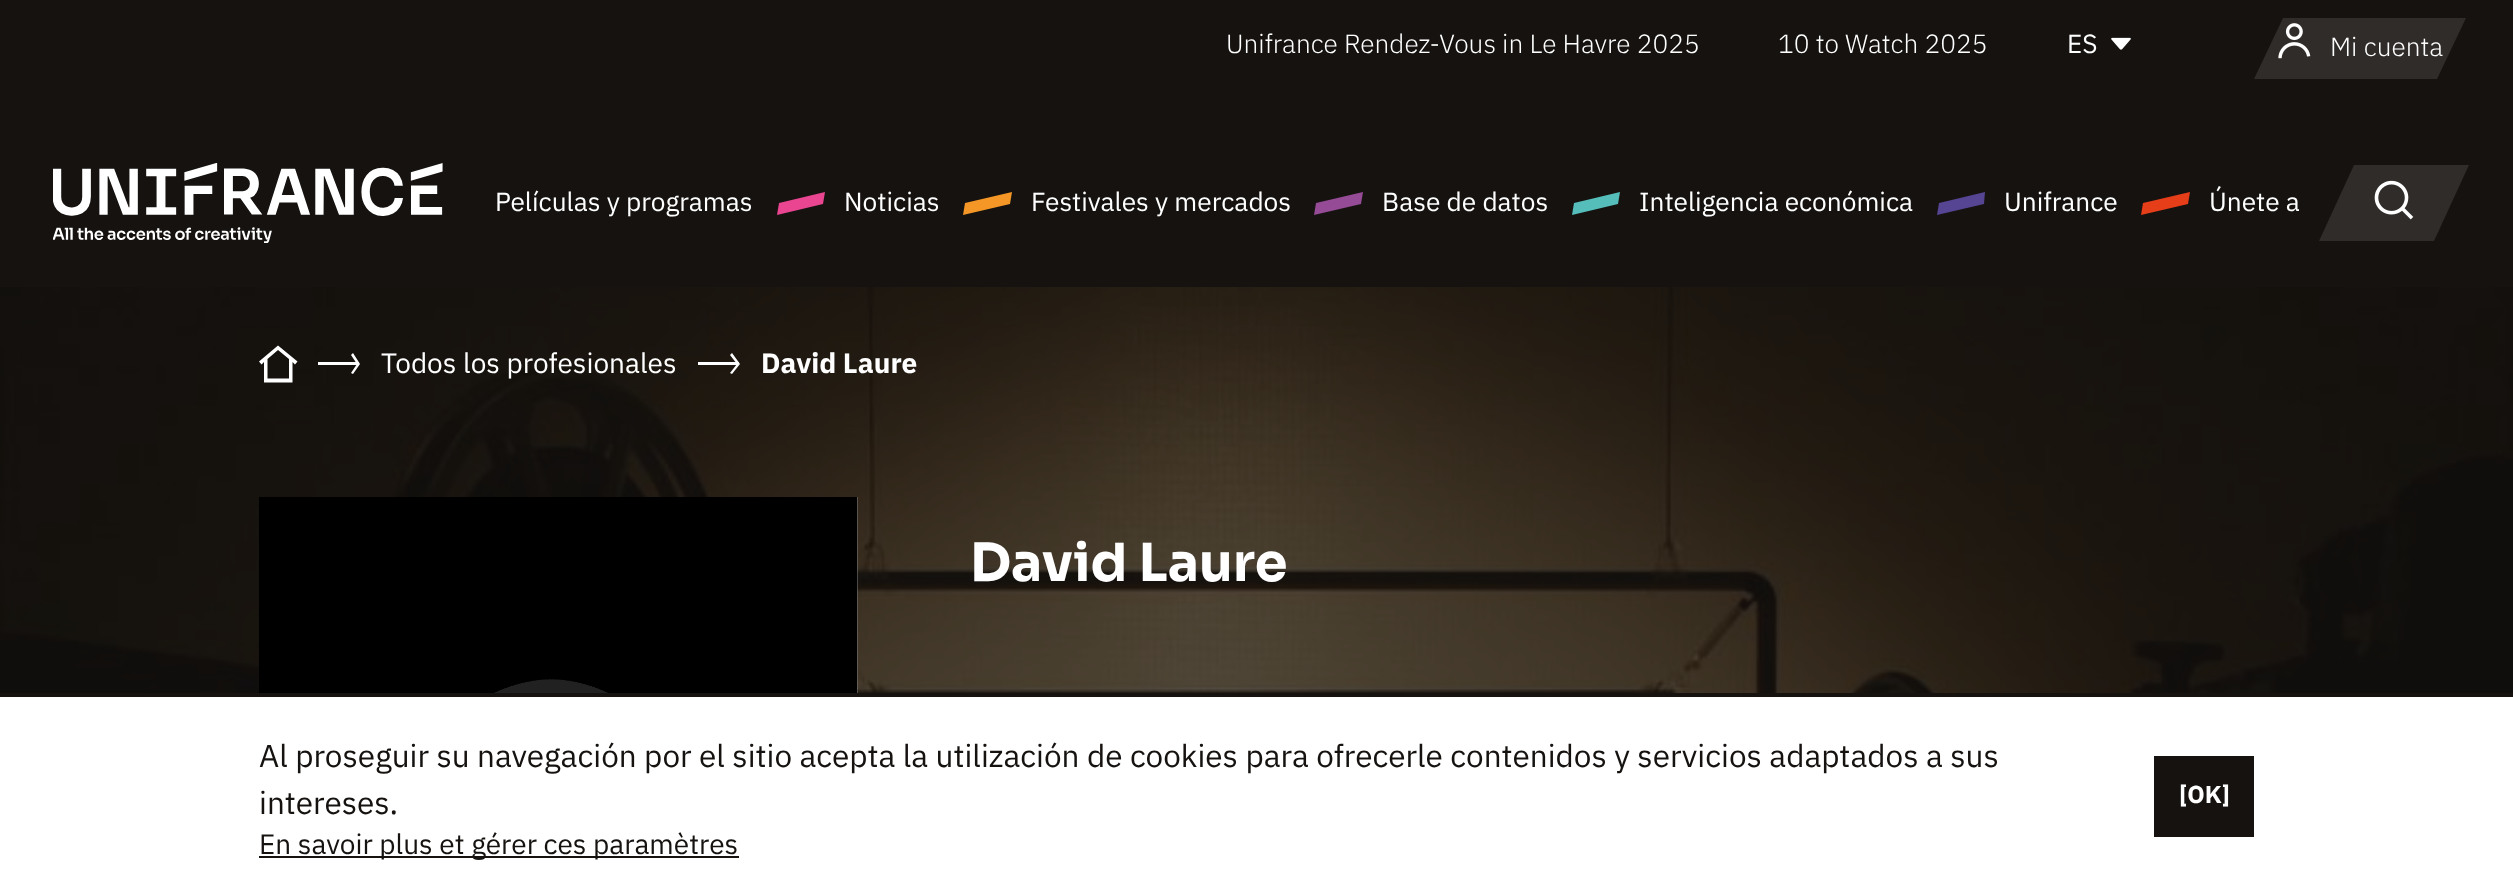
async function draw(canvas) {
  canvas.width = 2513;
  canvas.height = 877;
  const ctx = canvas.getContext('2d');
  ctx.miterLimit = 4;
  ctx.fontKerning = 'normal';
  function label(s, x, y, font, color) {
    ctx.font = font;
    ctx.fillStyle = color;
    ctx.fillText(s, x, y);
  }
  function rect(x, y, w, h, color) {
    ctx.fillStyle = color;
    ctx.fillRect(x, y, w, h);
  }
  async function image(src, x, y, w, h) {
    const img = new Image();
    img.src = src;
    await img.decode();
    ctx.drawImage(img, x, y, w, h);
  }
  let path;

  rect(0, 0, 2513, 877, '#fff');
  rect(0, 0, 2513, 287, '#151210');
  label('Unifrance Rendez-Vous in Le Havre 2025', 1226, 53, '300 26.25px IBM Plex Sans', '#fff');
  label('10 to Watch 2025', 1778, 53, '300 26.25px IBM Plex Sans', '#fff');
  await image('assets/img1.png', 2111, 37, 20, 13);
  label('ES', 2067, 53, '26.25px IBM Plex Sans', '#fff');
  ctx.fillStyle = '#302c2a';
  path = new Path2D('M2283 18H2466L2437 79H2254Z');
  ctx.fill(path);
  await image('assets/img2.png', 2278, 23, 33, 36);
  label('Mi cuenta', 2330, 56, '300 26.25px IBM Plex Sans', '#fff');
  await image('assets/img3.png', 53, 163, 390, 80);
  label('Películas y programas', 495, 211, '26.25px IBM Plex Sans', '#fff');
  ctx.fillStyle = '#e94591';
  path = new Path2D('M779 203L825 192L823 204L777 215Z');
  ctx.fill(path);
  label('Noticias', 844, 211, '26.25px IBM Plex Sans', '#fff');
  ctx.fillStyle = '#f49726';
  path = new Path2D('M965 203L1012 192L1010 204L963 215Z');
  ctx.fill(path);
  label('Festivales y mercados', 1031, 211, '26.25px IBM Plex Sans', '#fff');
  ctx.fillStyle = '#954b95';
  path = new Path2D('M1316 203L1363 192L1361 204L1314 215Z');
  ctx.fill(path);
  label('Base de datos', 1382, 211, '26.25px IBM Plex Sans', '#fff');
  ctx.fillStyle = '#55bdba';
  path = new Path2D('M1574 203L1620 192L1618 204L1572 215Z');
  ctx.fill(path);
  label('Inteligencia económica', 1639, 211, '26.25px IBM Plex Sans', '#fff');
  ctx.fillStyle = '#554593';
  path = new Path2D('M1939 203L1985 192L1984 204L1937 215Z');
  ctx.fill(path);
  label('Unifrance', 2004, 211, '26.25px IBM Plex Sans', '#fff');
  ctx.fillStyle = '#e73e1a';
  path = new Path2D('M2143 203L2190 192L2188 204L2141 215Z');
  ctx.fill(path);
  label('Únete a', 2209, 211, '26.25px IBM Plex Sans', '#fff');
  ctx.fillStyle = '#2f2c2a';
  path = new Path2D('M2354 165H2469L2434 241H2319Z');
  ctx.fill(path);
  await image('assets/img4.png', 2374, 180, 40, 40);
  await image('assets/img5.png', 0, 287, 2513, 406);
  ctx.fillStyle = '#fff';
  path = new Path2D('M297.5 361.5L278 345.5L259 361.5L261.5 364.5L264 362V382.5H292.5V362L295 364.5ZM289 378.5H267.5V359L278 350L289 359Z');
  ctx.fill(path);
  path = new Path2D('M318 362V365H359V362ZM353 353L351 355L357 364L351 373L353 374L360 364Z');
  ctx.fill(path);
  label('Todos los profesionales', 381, 373, '28px IBM Plex Sans', '#fff');
  path = new Path2D('M698 362V365H739V362ZM732 353L730 355L737 364L730 373L732 374L740 364Z');
  ctx.fill(path);
  label('David Laure', 761, 373, 'bold 28px IBM Plex Sans', '#fff');
  await image('assets/img6.png', 259, 497, 599, 196);
  label('David Laure', 970, 581, 'bold 52.5px Sora', '#fff');
  rect(0, 693, 2513, 4, '#151210');
  label('Al proseguir su navegación por el sitio acepta la utilización de cookies para ofrecerle contenidos y servicios adaptados a sus', 259, 767, '31.5px IBM Plex Sans', '#151210');
  label('intereses.', 259, 814, '31.5px IBM Plex Sans', '#151210');
  rect(259, 856, 480, 2, '#151210');
  label('En savoir plus et gérer ces paramètres', 259, 854, '28px IBM Plex Sans', '#151210');
  rect(2154, 756, 100, 81, '#151210');
  label('[OK]', 2179, 803, 'bold 24.5px IBM Plex Sans', '#fff');
}

draw(document.querySelector('canvas'));
